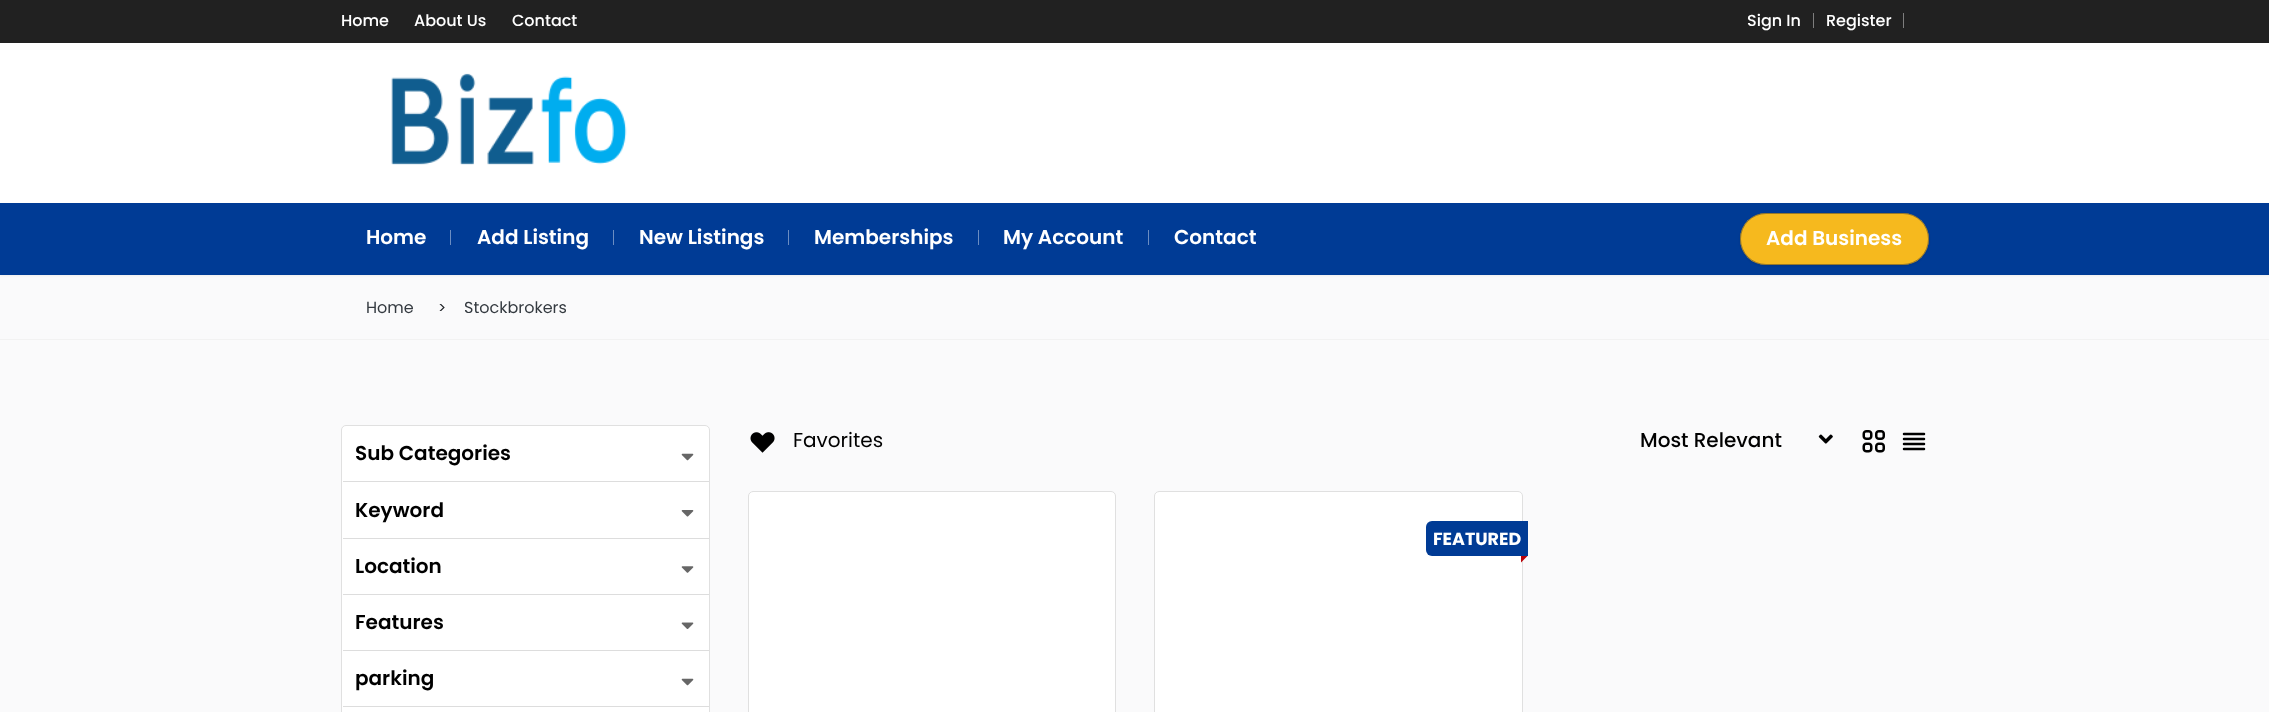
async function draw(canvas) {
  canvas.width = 2269;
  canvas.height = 712;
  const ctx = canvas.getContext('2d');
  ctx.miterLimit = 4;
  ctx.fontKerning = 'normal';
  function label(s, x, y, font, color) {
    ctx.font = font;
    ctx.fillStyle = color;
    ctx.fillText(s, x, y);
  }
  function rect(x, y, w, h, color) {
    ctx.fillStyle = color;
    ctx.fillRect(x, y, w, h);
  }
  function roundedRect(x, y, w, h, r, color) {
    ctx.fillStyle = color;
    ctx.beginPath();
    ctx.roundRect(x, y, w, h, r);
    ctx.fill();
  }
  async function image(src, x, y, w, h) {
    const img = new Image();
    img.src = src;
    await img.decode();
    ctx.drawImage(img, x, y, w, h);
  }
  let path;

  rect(0, 0, 2269, 712, '#fafafb');
  rect(0, 43, 2269, 160, '#fff');
  rect(0, 0, 2269, 43, '#212121');
  label('Home', 341, 26, '500 16px Poppins', '#fff');
  label('About Us', 414, 26, '500 16px Poppins', '#fff');
  label('Contact', 512, 26, '500 16px Poppins', '#fff');
  label('Sign In', 1747, 26, '500 16px Poppins', '#fff');
  rect(1813, 13, 1, 15, '#7e7e7e');
  label('Register', 1826, 26, '500 16px Poppins', '#fff');
  rect(1903, 13, 1, 15, '#7e7e7e');
  await image('assets/img1.png', 391, 73, 236, 92);
  ctx.fillStyle = '#0000000d';
  ctx.filter = 'blur(1px)';
  ctx.beginPath();
  ctx.rect(0, 204, 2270, 72);
  ctx.fill();
  ctx.filter = 'none';
  rect(0, 203, 2269, 72, '#003b95');
  label('Home', 366, 244, '600 20px Poppins', '#fff');
  rect(450, 230, 1, 15, '#6b8dc2');
  label('Add Listing', 477, 244, '600 20px Poppins', '#fff');
  rect(613, 230, 1, 15, '#6b8dc2');
  label('New Listings', 639, 244, '600 20px Poppins', '#fff');
  rect(788, 230, 1, 15, '#6b8dc2');
  label('Memberships', 814, 244, '600 20px Poppins', '#fff');
  rect(978, 230, 1, 15, '#6b8dc2');
  label('My Account', 1003, 244, '600 20px Poppins', '#fff');
  rect(1148, 230, 1, 15, '#6b8dc2');
  label('Contact', 1174, 244, '600 20px Poppins', '#fff');
  ctx.fillStyle = '#0000001a';
  ctx.filter = 'blur(1px)';
  ctx.beginPath();
  ctx.roundRect(1740, 214, 189, 52, 26);
  ctx.fill();
  ctx.filter = 'none';
  roundedRect(1740, 213, 189, 52, 26, '#f6b91e');
  ctx.beginPath();
  ctx.roundRect(1740.5, 213.5, 188, 51, 25.5);
  ctx.strokeStyle = '#3636367d';
  ctx.stroke();
  label('Add Business', 1766, 245, '600 20px Poppins', '#fff');
  rect(0, 339, 2269, 1, '#f2f2f2');
  label('Home', 366, 313, '16px Poppins', '#343a40');
  label('>', 438, 313, '15px Poppins', '#212529');
  label('Stockbrokers', 464, 313, '16px Poppins', '#343a40');
  ctx.fillStyle = '#fff';
  ctx.beginPath();
  ctx.roundRect(341.5, 425.5, 368, 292, 4.5);
  ctx.fill();
  ctx.strokeStyle = '#e0e0e0';
  ctx.stroke();
  rect(343, 481, 366, 1, '#ddd');
  label('Sub Categories', 355, 460, '600 20px Poppins', '#000');
  await image('assets/img2.png', 681, 453, 13, 8);
  rect(343, 538, 366, 1, '#ddd');
  label('Keyword', 355, 517, '600 20px Poppins', '#000');
  await image('assets/img3.png', 681, 510, 13, 7);
  rect(343, 594, 366, 1, '#ddd');
  label('Location', 355, 573, '600 20px Poppins', '#000');
  await image('assets/img4.png', 681, 566, 13, 7);
  rect(343, 650, 366, 1, '#ddd');
  label('Features', 355, 629, '600 20px Poppins', '#000');
  await image('assets/img5.png', 681, 622, 13, 7);
  rect(343, 706, 366, 1, '#ddd');
  label('parking', 355, 685, '600 20px Poppins', '#000');
  await image('assets/img2.png', 681, 678, 13, 8);
  await image('assets/img6.png', 750, 432, 25, 21);
  label('Favorites', 793, 447, '20px Poppins', '#000');
  label('Most Relevant', 1640, 447, '500 20px Poppins', '#000');
  await image('assets/img7.png', 1818, 434, 15, 10);
  await image('assets/img8.png', 1862, 430, 23, 23);
  path = new Path2D('M1904 434H1924M1904 439H1924M1904 444H1924M1904 449H1924');
  ctx.strokeStyle = '#000';
  ctx.lineWidth = 2.5;
  ctx.lineCap = 'round';
  ctx.lineJoin = 'round';
  ctx.stroke(path);
  ctx.fillStyle = '#fff';
  ctx.beginPath();
  ctx.roundRect(748.5, 491.5, 367, 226, 4.5);
  ctx.fill();
  ctx.strokeStyle = '#e0e0e0';
  ctx.lineWidth = 1;
  ctx.lineJoin = 'miter';
  ctx.stroke();
  ctx.beginPath();
  ctx.roundRect(1154.5, 491.5, 368, 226, 4.5);
  ctx.fill();
  ctx.stroke();
  ctx.fillStyle = '#003b95';
  ctx.beginPath();
  ctx.roundRect(1426, 521, 102, 35, [6, 0, 0, 6]);
  ctx.fill();
  label('FEATURED', 1433, 545, 'bold 17.5px Poppins', '#fff');
  ctx.fillStyle = '#b90006';
  path = new Path2D('M1521 562.5V556H1527.5Z');
  ctx.fill(path);
}

draw(document.querySelector('canvas'));
